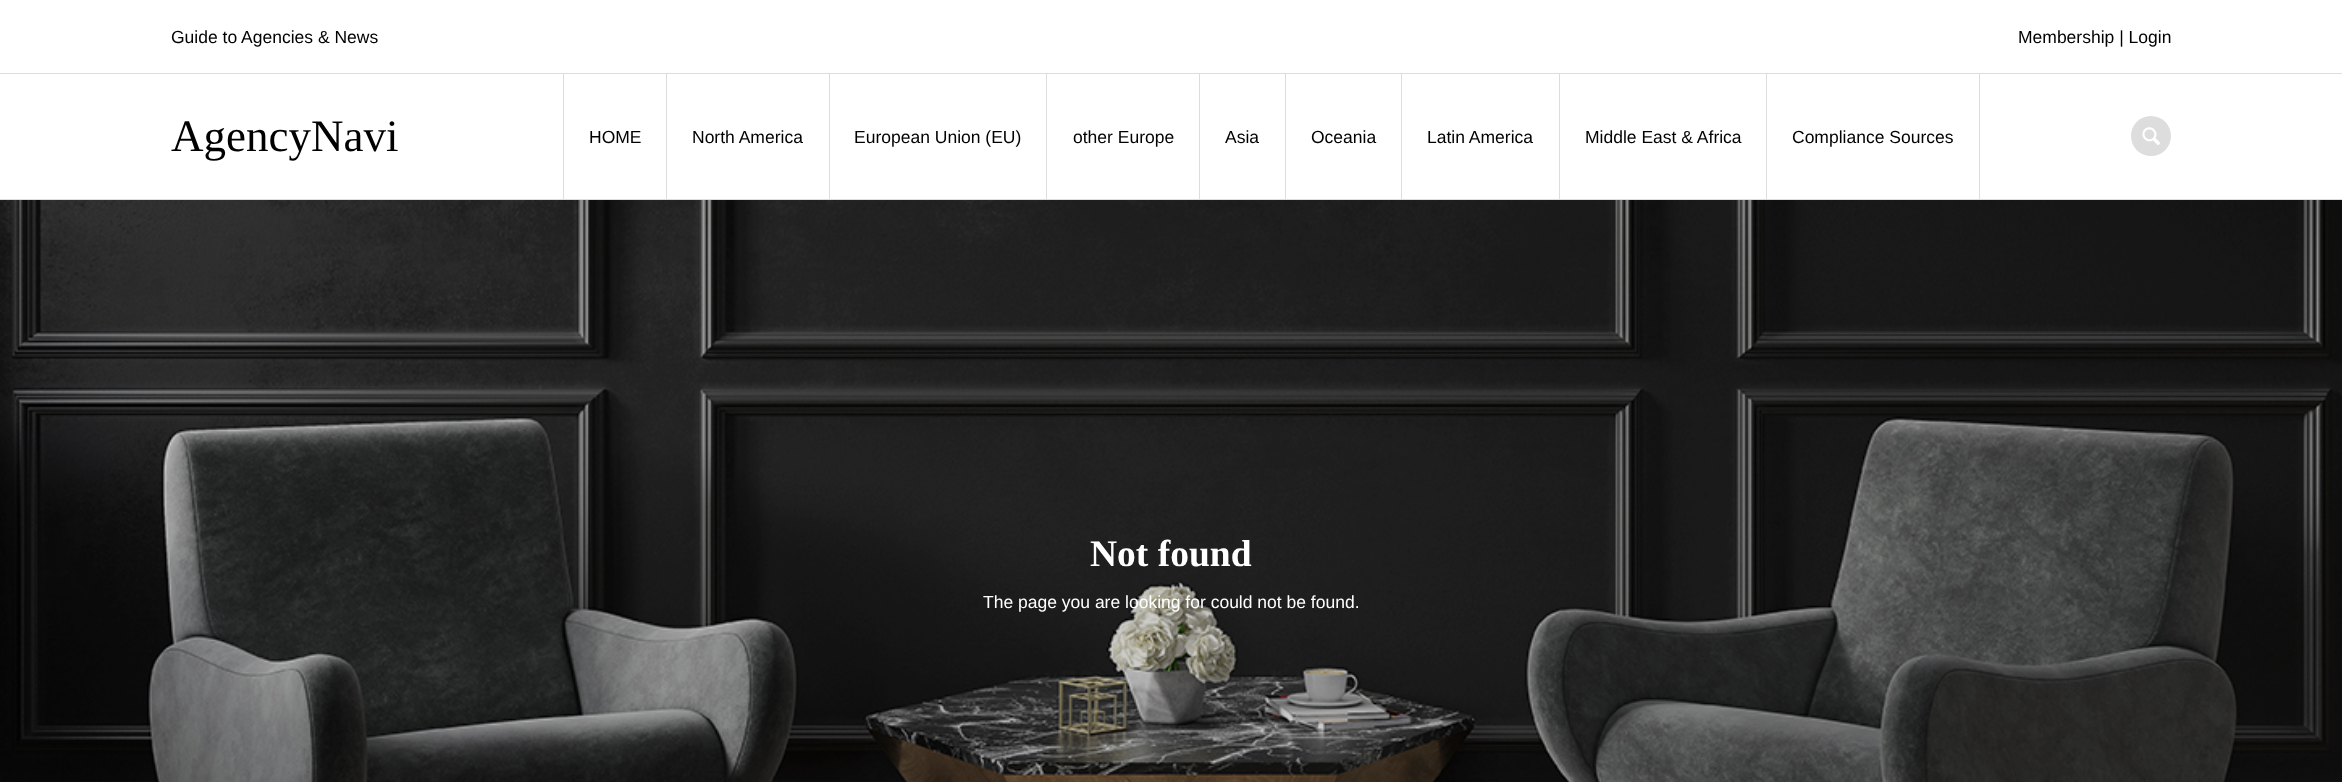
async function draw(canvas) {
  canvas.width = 2342;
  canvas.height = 782;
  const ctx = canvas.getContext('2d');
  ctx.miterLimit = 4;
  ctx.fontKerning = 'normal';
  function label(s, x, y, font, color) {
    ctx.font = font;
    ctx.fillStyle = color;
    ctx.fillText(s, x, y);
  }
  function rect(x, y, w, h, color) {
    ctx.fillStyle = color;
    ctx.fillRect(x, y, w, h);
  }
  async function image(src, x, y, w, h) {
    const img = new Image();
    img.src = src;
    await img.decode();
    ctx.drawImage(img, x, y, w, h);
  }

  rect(0, 0, 2342, 782, '#fff');
  rect(0, 73, 2342, 1, '#ddd');
  label('Guide to Agencies & News', 171, 43, '17.5px Liberation Sans', '#000');
  label('Membership | Login', 2018, 43, '17.5px Liberation Sans', '#000');
  rect(0, 199, 2342, 1, '#ddd');
  label('AgencyNavi', 171, 151, '45px Liberation Serif', '#000');
  rect(563, 74, 1, 125, '#ddd');
  rect(666, 74, 1, 126, '#ddd');
  label('HOME', 589, 143, '17.5px Liberation Sans', '#000');
  rect(829, 74, 1, 126, '#ddd');
  label('North America', 692, 143, '17.5px Liberation Sans', '#000');
  rect(1046, 74, 1, 126, '#ddd');
  label('European Union (EU)', 854, 143, '17.5px Liberation Sans', '#000');
  rect(1199, 74, 1, 126, '#ddd');
  label('other Europe', 1073, 143, '17.5px Liberation Sans', '#000');
  rect(1285, 74, 1, 126, '#ddd');
  label('Asia', 1225, 143, '17.5px Liberation Sans', '#000');
  rect(1401, 74, 1, 126, '#ddd');
  label('Oceania', 1311, 143, '17.5px Liberation Sans', '#000');
  rect(1559, 74, 1, 126, '#ddd');
  label('Latin America', 1427, 143, '17.5px Liberation Sans', '#000');
  rect(1766, 74, 1, 126, '#ddd');
  label('Middle East & Africa', 1585, 143, '17.5px Liberation Sans', '#000');
  rect(1979, 74, 1, 126, '#ddd');
  label('Compliance Sources', 1792, 143, '17.5px Liberation Sans', '#000');
  ctx.fillStyle = '#ddd';
  ctx.beginPath();
  ctx.arc(2151, 136, 20, 0, 2 * Math.PI);
  ctx.fill();
  await image('assets/img1.png', 2142, 127, 18, 18);
  await image('assets/img2.png', 0, 200, 2342, 582);
  label('Not found', 1090, 566, 'bold 37.5px Liberation Serif', '#fff');
  label('The page you are looking for could not be found.', 983, 608, '17.5px Liberation Sans', '#fff');
}

draw(document.querySelector('canvas'));
